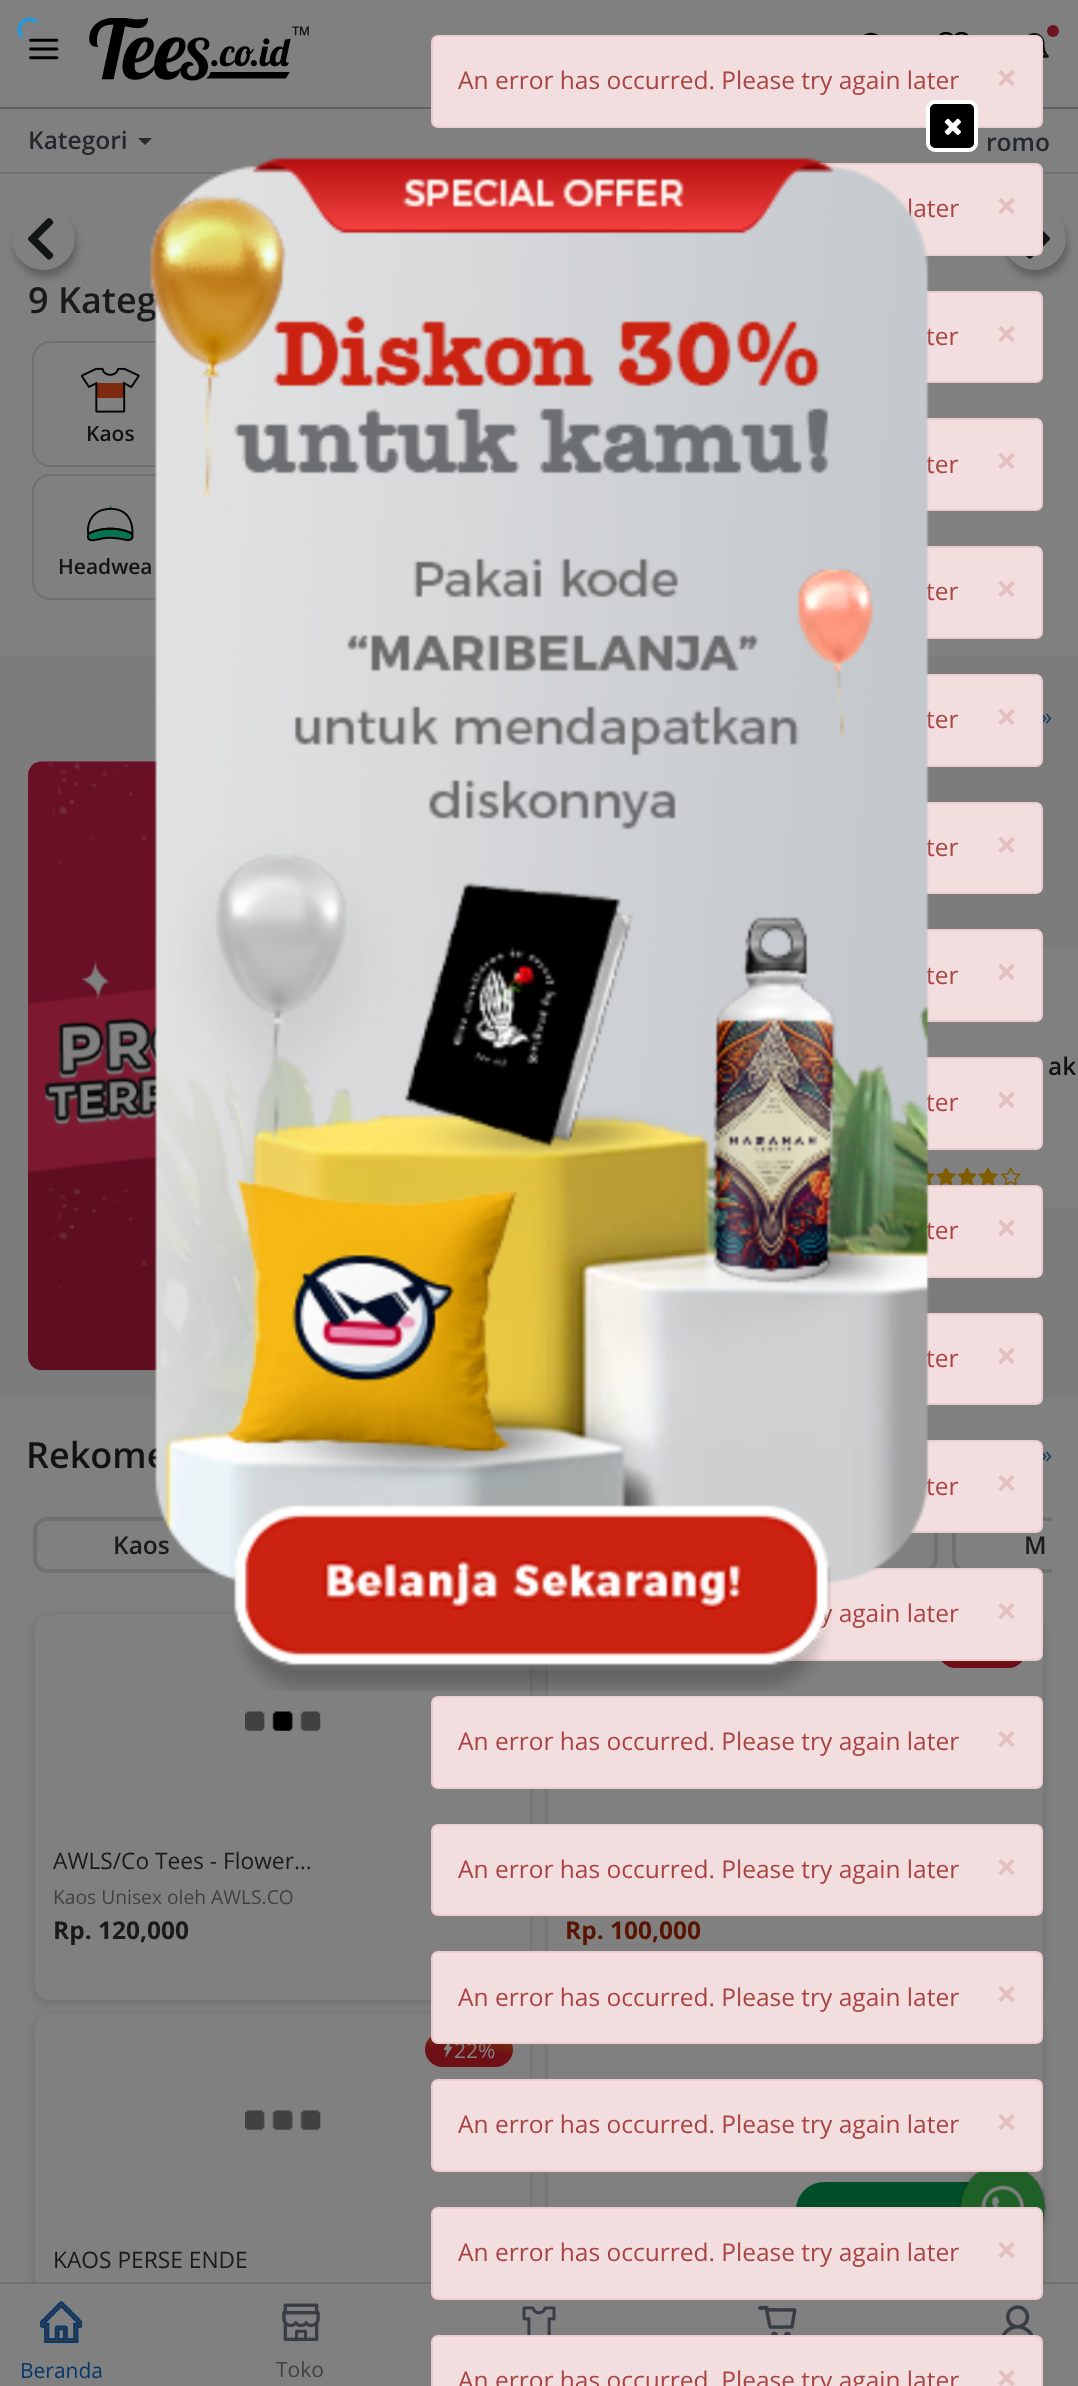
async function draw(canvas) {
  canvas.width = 1078;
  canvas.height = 2386;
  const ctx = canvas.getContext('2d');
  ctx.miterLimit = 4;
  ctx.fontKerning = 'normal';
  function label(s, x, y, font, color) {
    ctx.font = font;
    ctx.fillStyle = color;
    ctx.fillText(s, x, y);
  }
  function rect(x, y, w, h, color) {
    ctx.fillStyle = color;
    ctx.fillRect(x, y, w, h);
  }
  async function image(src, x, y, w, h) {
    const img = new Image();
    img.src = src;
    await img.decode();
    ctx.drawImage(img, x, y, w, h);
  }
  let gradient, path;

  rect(0, 0, 1078, 2386, '#808080');
  await image('assets/img2.png', 29, 38, 30, 22);
  path = new Path2D('M22.5 37C12.5 27.5 27.5 12.5 37 22.5');
  ctx.strokeStyle = '#29d';
  ctx.lineWidth = 3.5;
  ctx.stroke(path);
  rect(0, 107, 1078, 2, '#5d6063');
  await image('assets/img1.png', 89, 18, 202, 63);
  label('™', 292, 44, '24.5px Open Sans', '#111315');
  await image('assets/img3.png', 864, 32, 14, 3);
  await image('assets/img4.png', 939, 31, 30, 4);
  await image('assets/img5.png', 1028, 33, 21, 25);
  ctx.fillStyle = '#6e1421';
  ctx.beginPath();
  ctx.arc(1053, 31, 6, 0, 2 * Math.PI);
  ctx.fill();
  ctx.save();
  path = new Path2D('M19 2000H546V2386H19ZM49 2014H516C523.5 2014 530 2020.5 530 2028V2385C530 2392.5 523.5 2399 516 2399H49C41.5 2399 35 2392.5 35 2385V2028C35 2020.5 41.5 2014 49 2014Z');
  ctx.clip(path, 'evenodd');
  ctx.fillStyle = '#676a6d';
  ctx.filter = 'blur(5px)';
  ctx.beginPath();
  ctx.roundRect(35, 2016, 495, 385, 14);
  ctx.fill();
  ctx.filter = 'none';
  ctx.restore();
  ctx.save();
  path = new Path2D('M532 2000H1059V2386H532ZM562 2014H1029C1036.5 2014 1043 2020.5 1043 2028V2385C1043 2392.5 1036.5 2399 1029 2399H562C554.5 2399 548 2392.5 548 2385V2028C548 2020.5 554.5 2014 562 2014Z');
  ctx.clip(path, 'evenodd');
  ctx.fillStyle = '#676a6d';
  ctx.filter = 'blur(5px)';
  ctx.beginPath();
  ctx.roundRect(548, 2016, 495, 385, 14);
  ctx.fill();
  ctx.filter = 'none';
  ctx.restore();
  rect(0, 2282, 1078, 2, '#707070');
  rect(29, 2284, 1020, 102, '#808080');
  await image('assets/img6.png', 522, 2306, 34, 29);
  await image('assets/img7.png', 758, 2305, 39, 30);
  await image('assets/img8.png', 1001, 2305, 33, 30);
  await image('assets/img9.png', 40, 2301, 42, 42);
  label('Beranda', 20, 2378, '21px Open Sans', '#05376d');
  await image('assets/img10.png', 282, 2303, 38, 38);
  label('Toko', 276, 2377, '21px Open Sans', '#414141');
  rect(0, 172, 1078, 2, '#707070');
  label('Kategori', 28, 149, '600 24.5px Open Sans', '#25282c');
  path = new Path2D('M138 138H152L145 145Z');
  ctx.fill(path);
  label('romo', 986, 151, '600 24.5px Open Sans', '#25282c');
  ctx.fillStyle = '#00000040';
  ctx.filter = 'blur(3.5px)';
  ctx.beginPath();
  ctx.roundRect(14, 214, 63, 63, 31.5);
  ctx.fill();
  ctx.filter = 'none';
  ctx.fillStyle = '#808080';
  ctx.beginPath();
  ctx.arc(43.5, 238.5, 31.5, 0, 2 * Math.PI);
  ctx.fill();
  await image('assets/img11.png', 28, 218, 26, 42);
  ctx.fillStyle = '#00000040';
  ctx.filter = 'blur(3.5px)';
  ctx.beginPath();
  ctx.roundRect(1005, 214, 63, 63, 31.5);
  ctx.fill();
  ctx.filter = 'none';
  ctx.fillStyle = '#808080';
  ctx.beginPath();
  ctx.arc(1034.5, 238.5, 31.5, 0, 2 * Math.PI);
  ctx.fill();
  await image('assets/img12.png', 1026, 230, 24, 29);
  label('9 Kateg', 28, 313, '600 36px Open Sans', '#1a1a1a');
  ctx.beginPath();
  ctx.roundRect(33, 342, 155, 124, 17);
  ctx.strokeStyle = '#707070';
  ctx.lineWidth = 2;
  ctx.stroke();
  await image('assets/img13.png', 81, 367, 59, 46);
  label('Kaos', 86, 441, '600 21px Open Sans', '#111315');
  ctx.beginPath();
  ctx.roundRect(33, 475, 155, 124, 17);
  ctx.stroke();
  await image('assets/img14.png', 87, 506, 47, 36);
  label('Headwea', 58, 574, '600 21px Open Sans', '#111315');
  rect(0, 656, 1078, 742, '#7c7c7c');
  label('»', 1040, 725, '24.5px Open Sans', '#1a3d5c');
  await image('assets/img15.png', 28, 761, 129, 610);
  rect(925, 947, 153, 261, '#808080');
  label('ak', 1048, 1075, '600 24.5px Open Sans', '#111315');
  await image('assets/img16.png', 925, 1167, 10, 18);
  await image('assets/img17.png', 936, 1167, 20, 18);
  await image('assets/img17.png', 957, 1167, 20, 18);
  await image('assets/img17.png', 978, 1167, 20, 18);
  await image('assets/img18.png', 1001, 1167, 20, 18);
  label('Rekome', 26, 1468, '600 36px Open Sans', '#111315');
  label('»', 1040, 1463, '24.5px Open Sans', '#1a3d5c');
  ctx.beginPath();
  ctx.roundRect(35, 1519, 212, 52, 12);
  ctx.lineWidth = 4;
  ctx.stroke();
  label('Kaos', 113, 1554, '600 24.5px Open Sans', '#1a1a1a');
  ctx.beginPath();
  ctx.roundRect(725, 1519, 211, 52, 12);
  ctx.stroke();
  ctx.save();
  ctx.beginPath();
  ctx.rect(26, 1510, 1026, 70);
  ctx.clip();
  ctx.beginPath();
  ctx.roundRect(954, 1519, 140, 52, 12);
  ctx.stroke();
  ctx.restore();
  label('M', 1024, 1554, '600 24.5px Open Sans', '#1a1a1a');
  ctx.save();
  path = new Path2D('M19 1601H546V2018H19ZM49 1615H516C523.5 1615 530 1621.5 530 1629V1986C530 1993.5 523.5 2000 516 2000H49C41.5 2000 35 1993.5 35 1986V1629C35 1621.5 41.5 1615 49 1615Z');
  ctx.clip(path, 'evenodd');
  ctx.fillStyle = '#676a6d';
  ctx.filter = 'blur(5px)';
  ctx.beginPath();
  ctx.roundRect(35, 1617, 495, 385, 14);
  ctx.fill();
  ctx.filter = 'none';
  ctx.restore();
  await image('assets/img19.png', 245, 1711, 76, 20);
  label('AWLS/Co Tees - Flower…', 53, 1869, '22.75px Open Sans', '#1a1a1a');
  label('Kaos Unisex oleh AWLS.CO', 53, 1904, '19.25px Open Sans', '#414141');
  label('Rp. 120,000', 53, 1939, 'bold 24.5px Open Sans', '#1a1a1a');
  ctx.save();
  path = new Path2D('M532 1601H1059V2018H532ZM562 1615H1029C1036.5 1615 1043 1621.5 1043 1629V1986C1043 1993.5 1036.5 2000 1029 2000H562C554.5 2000 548 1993.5 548 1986V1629C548 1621.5 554.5 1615 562 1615Z');
  ctx.clip(path, 'evenodd');
  ctx.fillStyle = '#676a6d';
  ctx.filter = 'blur(5px)';
  ctx.beginPath();
  ctx.roundRect(548, 1617, 495, 385, 14);
  ctx.fill();
  ctx.filter = 'none';
  ctx.restore();
  gradient = ctx.createLinearGradient(983, 1629, 980, 1671);
  gradient.addColorStop(0.04, '#774012');
  gradient.addColorStop(0.57, '#6d0f14');
  ctx.fillStyle = gradient;
  ctx.beginPath();
  ctx.roundRect(938, 1633, 88, 35, 17.5);
  ctx.fill();
  label('Rp. 100,000', 565, 1939, 'bold 24.5px Open Sans', '#591402');
  await image('assets/img20.png', 245, 2110, 76, 20);
  gradient = ctx.createLinearGradient(471, 2028, 467, 2070);
  gradient.addColorStop(0.04, '#774012');
  gradient.addColorStop(0.57, '#6d0f14');
  ctx.fillStyle = gradient;
  ctx.beginPath();
  ctx.roundRect(425, 2032, 88, 35, 17.5);
  ctx.fill();
  await image('assets/img21.png', 443, 2044, 10, 13);
  label('22%', 454, 2058, '21px Open Sans', '#808080');
  label('KAOS PERSE ENDE', 53, 2268, '22.75px Open Sans', '#1a1a1a');
  ctx.fillStyle = '#004d2a';
  ctx.beginPath();
  ctx.roundRect(796, 2182, 188, 56, [28, 0, 0, 28]);
  ctx.fill();
  await image('assets/img22.png', 957, 2172, 92, 58);
  ctx.fillStyle = '#f2dede';
  ctx.beginPath();
  ctx.roundRect(432, 36, 610, 91, 6);
  ctx.fill();
  ctx.strokeStyle = '#ebccd1';
  ctx.lineWidth = 2;
  ctx.stroke();
  label('An error has occurred. Please try again later', 458, 89, '24.5px Open Sans', '#a94442');
  label('×', 996, 91, 'bold 37px Open Sans', '#e3bfbf');
  ctx.fillStyle = '#f2dede';
  ctx.beginPath();
  ctx.roundRect(432, 164, 610, 91, 6);
  ctx.fill();
  ctx.stroke();
  label('later', 907, 217, '24.5px Open Sans', '#a94442');
  label('×', 996, 219, 'bold 37px Open Sans', '#e3bfbf');
  ctx.fillStyle = '#f2dede';
  ctx.beginPath();
  ctx.roundRect(432, 292, 610, 90, 6);
  ctx.fill();
  ctx.stroke();
  label('ter', 926, 345, '24.5px Open Sans', '#a94442');
  label('×', 996, 347, 'bold 37px Open Sans', '#e3bfbf');
  ctx.fillStyle = '#f2dede';
  ctx.beginPath();
  ctx.roundRect(432, 419, 610, 91, 6);
  ctx.fill();
  ctx.stroke();
  label('ter', 926, 473, '24.5px Open Sans', '#a94442');
  label('×', 996, 474, 'bold 37px Open Sans', '#e3bfbf');
  ctx.fillStyle = '#f2dede';
  ctx.beginPath();
  ctx.roundRect(432, 547, 610, 91, 6);
  ctx.fill();
  ctx.stroke();
  label('ter', 926, 600, '24.5px Open Sans', '#a94442');
  label('×', 996, 602, 'bold 37px Open Sans', '#e3bfbf');
  ctx.fillStyle = '#f2dede';
  ctx.beginPath();
  ctx.roundRect(432, 675, 610, 91, 6);
  ctx.fill();
  ctx.stroke();
  label('ter', 926, 728, '24.5px Open Sans', '#a94442');
  label('×', 996, 730, 'bold 37px Open Sans', '#e3bfbf');
  ctx.fillStyle = '#f2dede';
  ctx.beginPath();
  ctx.roundRect(432, 803, 610, 90, 6);
  ctx.fill();
  ctx.stroke();
  label('ter', 926, 856, '24.5px Open Sans', '#a94442');
  label('×', 996, 858, 'bold 37px Open Sans', '#e3bfbf');
  ctx.fillStyle = '#f2dede';
  ctx.beginPath();
  ctx.roundRect(432, 930, 610, 91, 6);
  ctx.fill();
  ctx.stroke();
  label('ter', 926, 984, '24.5px Open Sans', '#a94442');
  label('×', 996, 985, 'bold 37px Open Sans', '#e3bfbf');
  ctx.fillStyle = '#f2dede';
  ctx.beginPath();
  ctx.roundRect(432, 1058, 610, 91, 6);
  ctx.fill();
  ctx.stroke();
  label('ter', 926, 1111, '24.5px Open Sans', '#a94442');
  label('×', 996, 1113, 'bold 37px Open Sans', '#e3bfbf');
  ctx.fillStyle = '#f2dede';
  ctx.beginPath();
  ctx.roundRect(432, 1186, 610, 91, 6);
  ctx.fill();
  ctx.stroke();
  label('ter', 926, 1239, '24.5px Open Sans', '#a94442');
  label('×', 996, 1241, 'bold 37px Open Sans', '#e3bfbf');
  ctx.fillStyle = '#f2dede';
  ctx.beginPath();
  ctx.roundRect(432, 1314, 610, 90, 6);
  ctx.fill();
  ctx.stroke();
  label('ter', 926, 1367, '24.5px Open Sans', '#a94442');
  label('×', 996, 1369, 'bold 37px Open Sans', '#e3bfbf');
  ctx.fillStyle = '#f2dede';
  ctx.beginPath();
  ctx.roundRect(432, 1441, 610, 91, 6);
  ctx.fill();
  ctx.stroke();
  label('ter', 926, 1495, '24.5px Open Sans', '#a94442');
  label('×', 996, 1496, 'bold 37px Open Sans', '#e3bfbf');
  ctx.fillStyle = '#f2dede';
  ctx.beginPath();
  ctx.roundRect(432, 1569, 610, 91, 6);
  ctx.fill();
  ctx.stroke();
  label('y again later', 820, 1622, '24.5px Open Sans', '#a94442');
  label('×', 996, 1624, 'bold 37px Open Sans', '#e3bfbf');
  ctx.fillStyle = '#f2dede';
  ctx.beginPath();
  ctx.roundRect(432, 1697, 610, 91, 6);
  ctx.fill();
  ctx.stroke();
  label('An error has occurred. Please try again later', 458, 1750, '24.5px Open Sans', '#a94442');
  label('×', 996, 1752, 'bold 37px Open Sans', '#e3bfbf');
  ctx.fillStyle = '#f2dede';
  ctx.beginPath();
  ctx.roundRect(432, 1825, 610, 90, 6);
  ctx.fill();
  ctx.stroke();
  label('An error has occurred. Please try again later', 458, 1878, '24.5px Open Sans', '#a94442');
  label('×', 996, 1880, 'bold 37px Open Sans', '#e3bfbf');
  ctx.fillStyle = '#f2dede';
  ctx.beginPath();
  ctx.roundRect(432, 1952, 610, 91, 6);
  ctx.fill();
  ctx.stroke();
  label('An error has occurred. Please try again later', 458, 2006, '24.5px Open Sans', '#a94442');
  label('×', 996, 2007, 'bold 37px Open Sans', '#e3bfbf');
  ctx.fillStyle = '#f2dede';
  ctx.beginPath();
  ctx.roundRect(432, 2080, 610, 91, 6);
  ctx.fill();
  ctx.stroke();
  label('An error has occurred. Please try again later', 458, 2133, '24.5px Open Sans', '#a94442');
  label('×', 996, 2135, 'bold 37px Open Sans', '#e3bfbf');
  ctx.fillStyle = '#f2dede';
  ctx.beginPath();
  ctx.roundRect(432, 2208, 610, 91, 6);
  ctx.fill();
  ctx.stroke();
  label('An error has occurred. Please try again later', 458, 2261, '24.5px Open Sans', '#a94442');
  label('×', 996, 2263, 'bold 37px Open Sans', '#e3bfbf');
  ctx.fillStyle = '#f2dede';
  ctx.beginPath();
  ctx.roundRect(432, 2336, 610, 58, 6);
  ctx.fill();
  ctx.stroke();
  label('An error has occurred. Please try again later', 458, 2389, '24.5px Open Sans', '#a94442');
  label('×', 996, 2391, 'bold 37px Open Sans', '#e3bfbf');
  ctx.fillStyle = '#000';
  ctx.beginPath();
  ctx.roundRect(928, 102, 48, 48, 7);
  ctx.fill();
  ctx.strokeStyle = '#fff';
  ctx.lineWidth = 4;
  ctx.stroke();
  await image('assets/img23.png', 944, 118, 17, 17);
  await image('assets/img24.png', 149, 157, 780, 1534);
}

draw(document.querySelector('canvas'));
